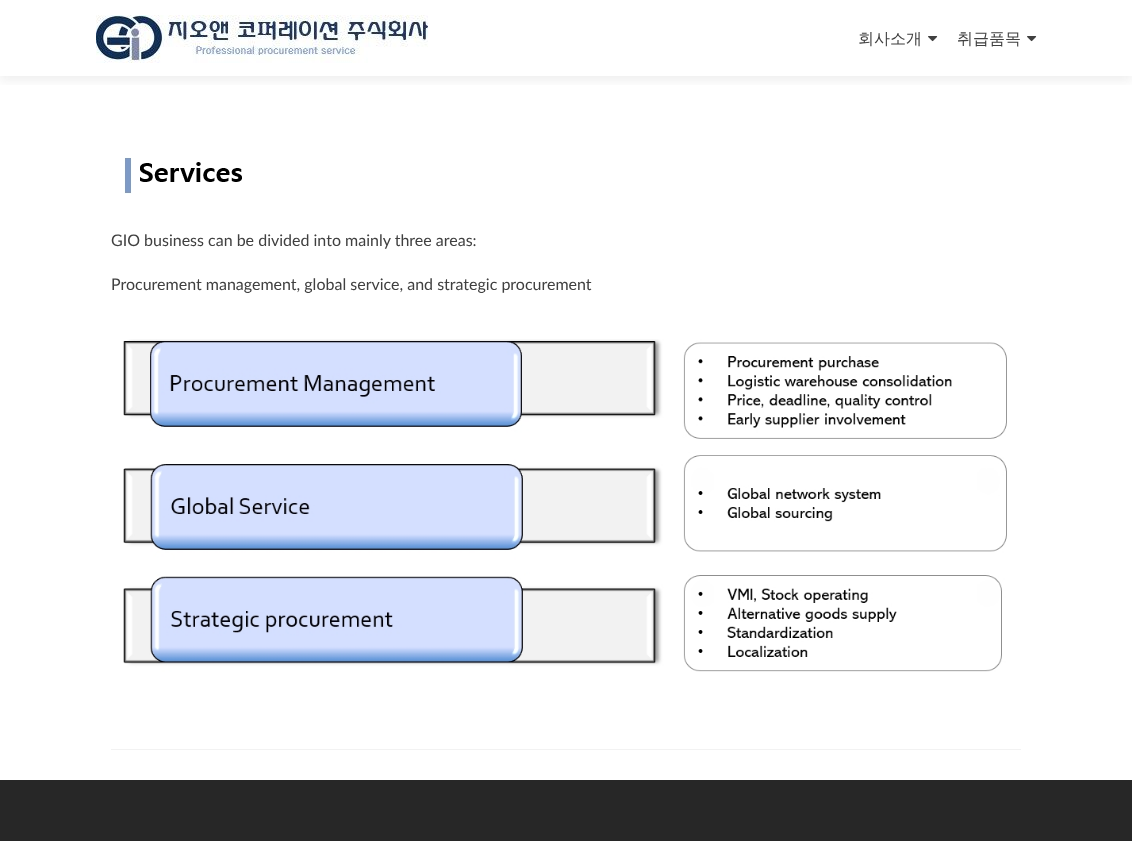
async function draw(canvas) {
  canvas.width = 1132;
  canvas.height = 841;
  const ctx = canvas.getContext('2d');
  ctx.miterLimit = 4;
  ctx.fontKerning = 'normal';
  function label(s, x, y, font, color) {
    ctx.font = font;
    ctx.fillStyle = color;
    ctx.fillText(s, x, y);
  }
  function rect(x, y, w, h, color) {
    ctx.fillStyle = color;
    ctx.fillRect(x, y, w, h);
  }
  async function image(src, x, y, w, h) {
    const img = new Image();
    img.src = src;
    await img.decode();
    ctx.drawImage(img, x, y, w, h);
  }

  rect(0, 0, 1132, 841, '#fff');
  ctx.save();
  ctx.beginPath();
  ctx.rect(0, 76, 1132, 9);
  ctx.clip();
  ctx.fillStyle = '#32323214';
  ctx.filter = 'blur(5.5px)';
  ctx.beginPath();
  ctx.rect(0, 5, 1132, 76);
  ctx.fill();
  ctx.filter = 'none';
  ctx.restore();
  await image('assets/img1.png', 96, 15, 332, 48);
  label('회사소개', 858, 44, '500 16px WenQuanYi Zen Hei', '#404040');
  await image('assets/img2.png', 928, 36, 10, 6);
  label('취급품목', 957, 44, '500 16px WenQuanYi Zen Hei', '#404040');
  await image('assets/img2.png', 1027, 36, 10, 6);
  rect(111, 749, 910, 1, '#f2f2f2');
  await image('assets/img3.png', 124, 157, 118, 37);
  label('GIO business can be divided into mainly three areas:', 111, 246, '16px Lato', '#404040');
  label('Procurement management, global service, and strategic procurement', 111, 290, '16px Lato', '#404040');
  await image('assets/img4.png', 123, 339, 884, 333);
  rect(0, 780, 1132, 61, '#272727');
}

draw(document.querySelector('canvas'));
